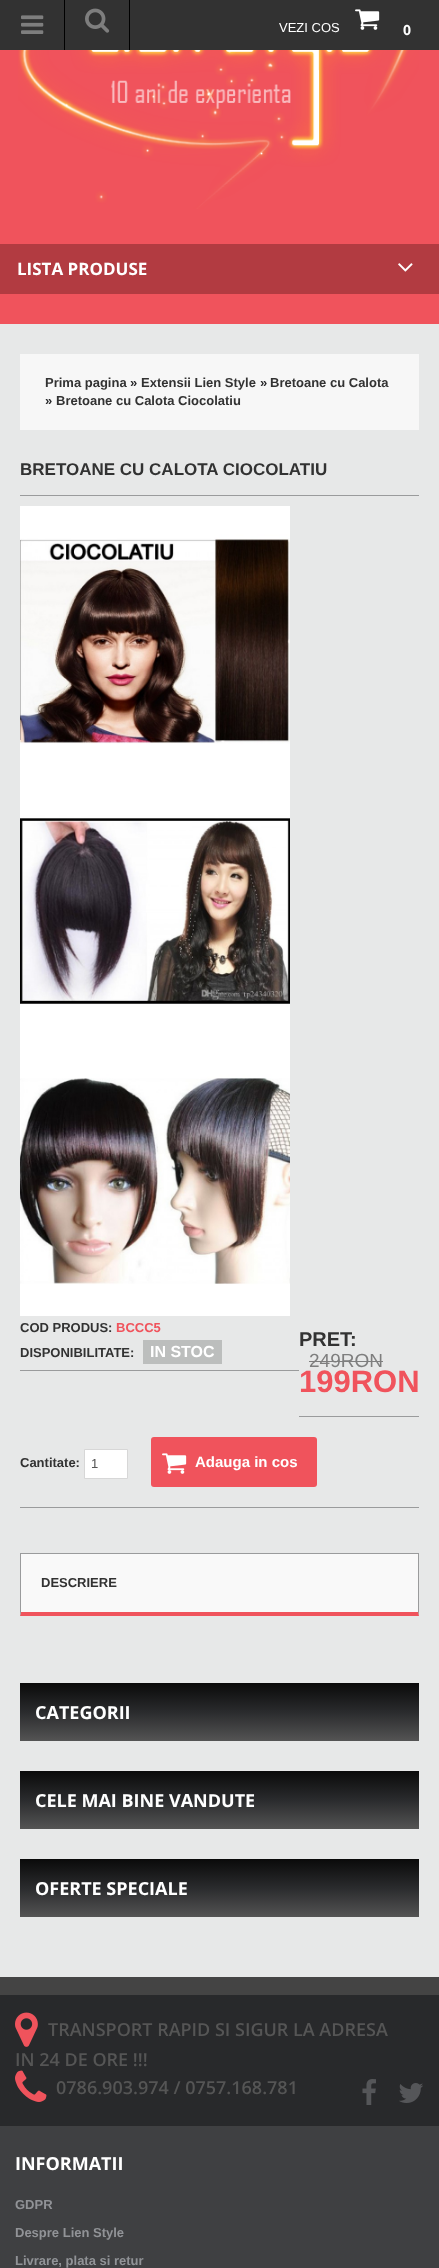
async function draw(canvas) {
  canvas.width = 439;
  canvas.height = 2268;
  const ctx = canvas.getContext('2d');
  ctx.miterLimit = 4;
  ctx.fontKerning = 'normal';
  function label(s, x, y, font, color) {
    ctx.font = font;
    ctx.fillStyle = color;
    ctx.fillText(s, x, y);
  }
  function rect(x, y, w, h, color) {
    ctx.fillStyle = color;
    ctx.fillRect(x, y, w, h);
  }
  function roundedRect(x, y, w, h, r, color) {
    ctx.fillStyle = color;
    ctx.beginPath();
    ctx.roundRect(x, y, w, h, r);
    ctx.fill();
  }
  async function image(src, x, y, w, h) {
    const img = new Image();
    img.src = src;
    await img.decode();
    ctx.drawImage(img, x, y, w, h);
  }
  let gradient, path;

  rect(0, 0, 439, 2268, '#f0535c');
  rect(0, 0, 439, 50, '#323232');
  rect(64, 0, 1, 50, '#000');
  await image('assets/img1.png', 21, 15, 23, 19);
  rect(129, 0, 1, 50, '#000');
  await image('assets/img2.png', 85, 8, 25, 25);
  label('VEZI COS', 279, 32, '13px Liberation Sans', '#fff');
  await image('assets/img3.png', 355, 9, 25, 21);
  label('0', 403, 35, 'bold 14px Open Sans', '#fff');
  await image('assets/img4.png', 18, 50, 401, 159);
  rect(0, 244, 439, 50, '#b23b41');
  label('LISTA PRODUSE', 17, 275, 'bold 17px Open Sans', '#fff');
  await image('assets/img5.png', 398, 263, 15, 9);
  rect(0, 324, 439, 1653, '#e7e8e8');
  rect(20, 354, 399, 76, '#f7f7f7');
  label('Prima pagina', 45, 387, 'bold 13px Liberation Sans', '#323232');
  label('»', 130, 387, 'bold 13px Liberation Sans', '#28292b');
  label('Extensii Lien Style', 141, 387, 'bold 13px Liberation Sans', '#323232');
  label('»', 260, 387, 'bold 13px Liberation Sans', '#28292b');
  label('Bretoane cu Calota', 270, 387, 'bold 13px Liberation Sans', '#323232');
  label('»', 45, 405, 'bold 13px Liberation Sans', '#28292b');
  label('Bretoane cu Calota Ciocolatiu', 56, 405, 'bold 13px Liberation Sans', '#323232');
  rect(20, 495, 399, 1, '#9a9b9c');
  label('BRETOANE CU CALOTA CIOCOLATIU', 20, 475, 'bold 17px Liberation Sans', '#323232');
  await image('assets/img6.png', 20, 506, 270, 270);
  await image('assets/img7.png', 20, 776, 270, 270);
  await image('assets/img8.png', 20, 1046, 270, 270);
  rect(20, 1370, 279, 1, '#9a9b9c');
  label('COD PRODUS:', 20, 1332, 'bold 13px Liberation Sans', '#323232');
  label('BCCC5', 116, 1332, 'bold 13px Liberation Sans', '#f0535c');
  label('DISPONIBILITATE:', 20, 1357, 'bold 13px Liberation Sans', '#323232');
  rect(143, 1340, 79, 24, '#bcbebd');
  label('IN STOC', 150, 1357, 'bold 16px Liberation Sans', '#fff');
  rect(299, 1416, 120, 1, '#9a9b9c');
  label('PRET:', 299, 1346, 'bold 20px Liberation Sans', '#323232');
  label('249RON', 309, 1367, '19px Liberation Sans', '#7e7e7e');
  rect(309, 1361, 74, 1, '#7e7e7e');
  label('199RON', 299, 1392, 'bold 31px Liberation Sans', '#f0535c');
  rect(20, 1507, 399, 1, '#9a9b9c');
  label('Cantitate:', 20, 1467, 'bold 13px Liberation Sans', '#323232');
  ctx.fillStyle = '#fff';
  ctx.beginPath();
  ctx.rect(84.5, 1449.5, 43, 29);
  ctx.fill();
  ctx.strokeStyle = '#d7d7d7';
  ctx.stroke();
  label('1', 91, 1468, '13px Liberation Sans', '#555');
  roundedRect(151, 1437, 166, 50, 3, '#f0535c');
  await image('assets/img9.png', 162, 1453, 25, 21);
  label('Adauga in cos', 195, 1467, 'bold 15px Liberation Sans', '#fff');
  rect(21, 1554, 397, 58, '#f9f9f9');
  rect(20, 1553, 399, 1, '#9a9b9c');
  path = new Path2D('M419 1553V1616L418 1612V1554Z');
  ctx.fill(path);
  ctx.fillStyle = '#f0535c';
  path = new Path2D('M419 1616H20L21 1612H418Z');
  ctx.fill(path);
  ctx.fillStyle = '#9a9b9c';
  path = new Path2D('M20 1616V1553L21 1554V1612Z');
  ctx.fill(path);
  label('DESCRIERE', 41, 1587, 'bold 13px Liberation Sans', '#323232');
  gradient = ctx.createLinearGradient(220, 1683, 220, 1741);
  gradient.addColorStop(0, '#0a0a0a');
  gradient.addColorStop(0.5, '#2a2b2d');
  gradient.addColorStop(1, '#545454');
  ctx.fillStyle = gradient;
  ctx.fillRect(20, 1683, 399, 58);
  label('CATEGORII', 35, 1719, 'bold 18px Open Sans', '#fff');
  gradient = ctx.createLinearGradient(220, 1771, 220, 1829);
  gradient.addColorStop(0, '#0a0a0a');
  gradient.addColorStop(0.5, '#2a2b2d');
  gradient.addColorStop(1, '#545454');
  ctx.fillStyle = gradient;
  ctx.fillRect(20, 1771, 399, 58);
  label('CELE MAI BINE VANDUTE', 35, 1807, 'bold 18px Open Sans', '#fff');
  gradient = ctx.createLinearGradient(220, 1859, 220, 1917);
  gradient.addColorStop(0, '#0a0a0a');
  gradient.addColorStop(0.5, '#2a2b2d');
  gradient.addColorStop(1, '#545454');
  ctx.fillStyle = gradient;
  ctx.fillRect(20, 1859, 399, 58);
  label('OFERTE SPECIALE', 35, 1895, 'bold 18px Open Sans', '#fff');
  rect(0, 1977, 439, 18, '#444');
  rect(0, 1995, 439, 131, '#28292b');
  await image('assets/img10.png', 15, 2012, 23, 35);
  label('TRANSPORT RAPID SI SIGUR LA ADRESA', 48, 2036, '600 18px Open Sans', '#555');
  label('IN 24 DE ORE !!!', 15, 2066, '600 18px Open Sans', '#555');
  await image('assets/img11.png', 15, 2070, 32, 32);
  label('0786.903.974 / 0757.168.781', 56, 2094, '600 18px Open Sans', '#555');
  await image('assets/img12.png', 362, 2079, 14, 26);
  await image('assets/img13.png', 399, 2083, 24, 20);
  rect(0, 2126, 439, 142, '#3f4042');
  label('INFORMATII', 15, 2170, 'bold 18px Open Sans', '#fff');
  label('GDPR', 15, 2209, 'bold 13px Liberation Sans', '#919397');
  label('Despre Lien Style', 15, 2237, 'bold 13px Liberation Sans', '#919397');
  label('Livrare, plata si retur', 15, 2265, 'bold 13px Liberation Sans', '#919397');
}

draw(document.querySelector('canvas'));
